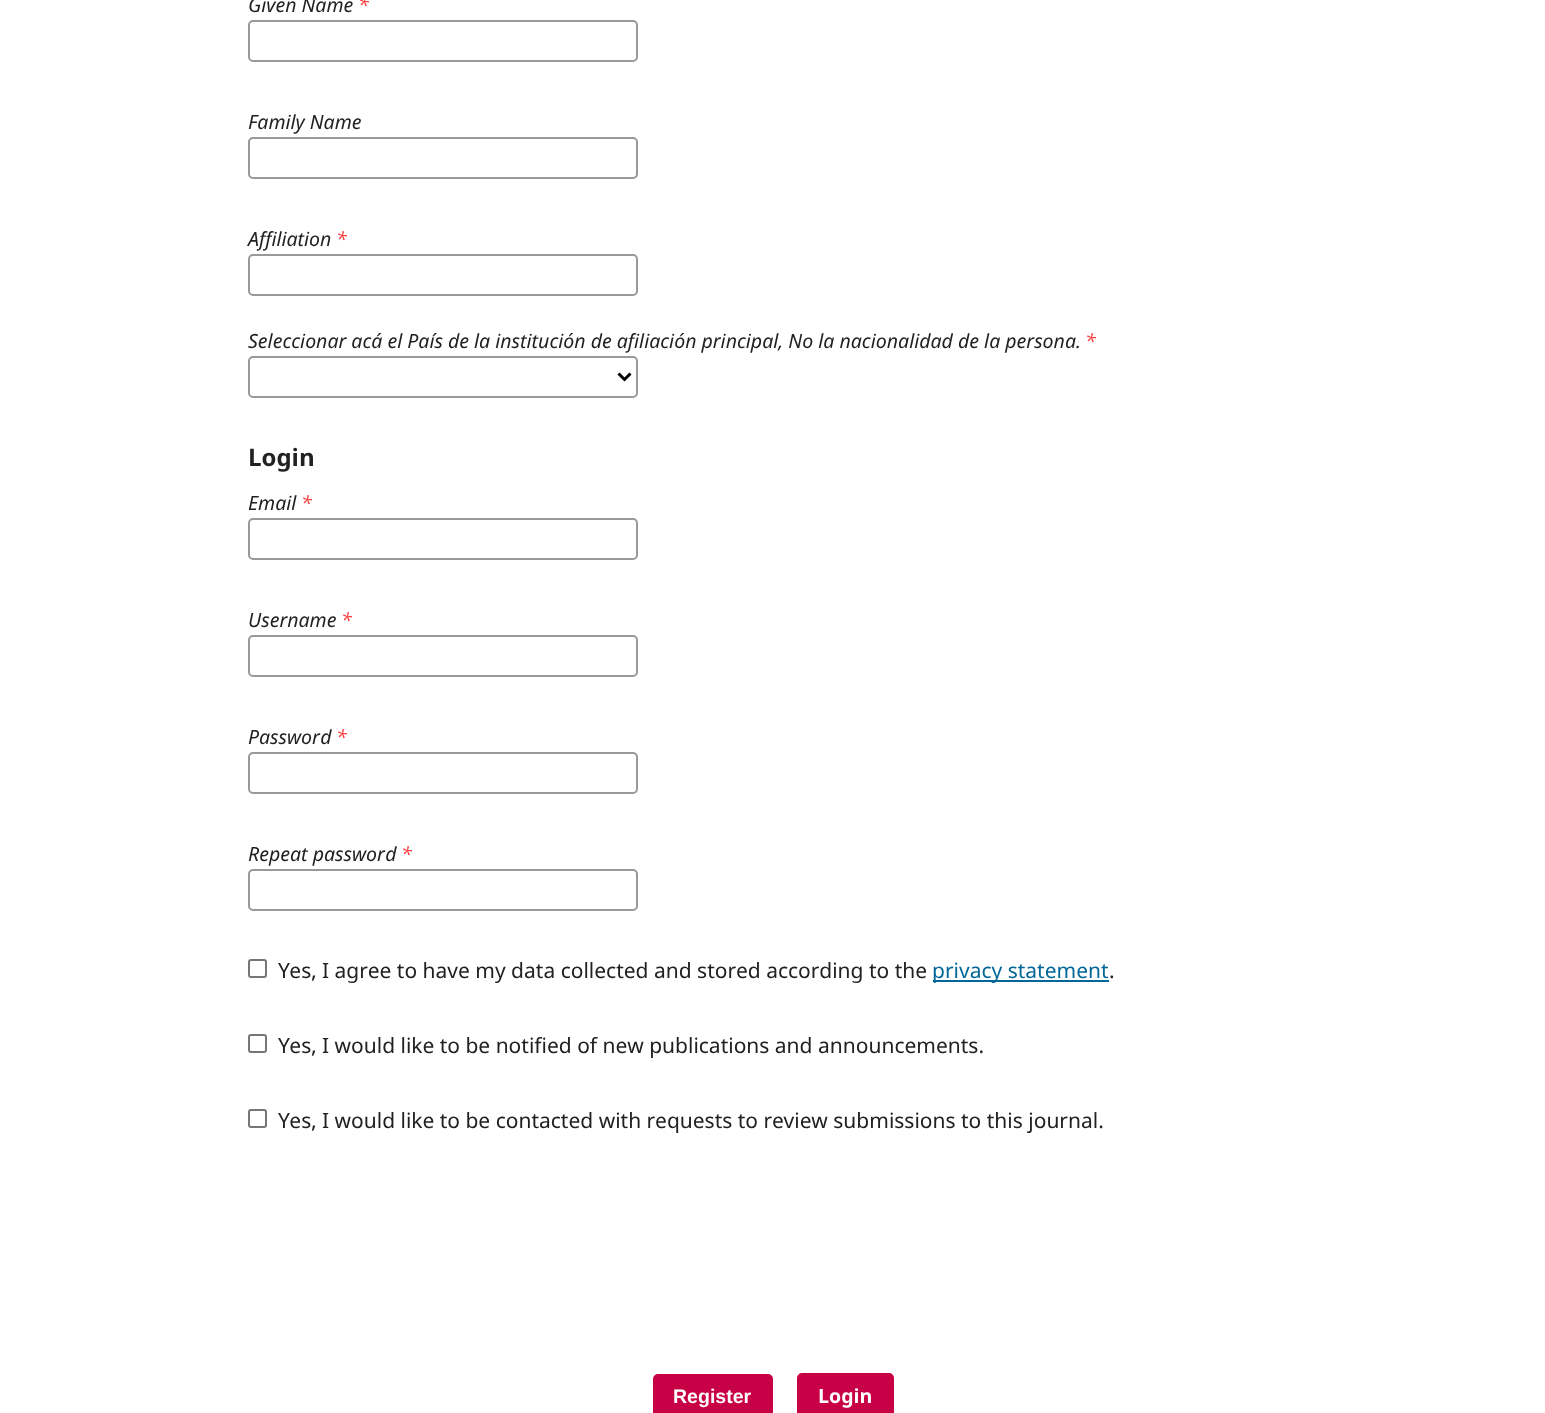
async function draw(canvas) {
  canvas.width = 1545;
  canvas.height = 1413;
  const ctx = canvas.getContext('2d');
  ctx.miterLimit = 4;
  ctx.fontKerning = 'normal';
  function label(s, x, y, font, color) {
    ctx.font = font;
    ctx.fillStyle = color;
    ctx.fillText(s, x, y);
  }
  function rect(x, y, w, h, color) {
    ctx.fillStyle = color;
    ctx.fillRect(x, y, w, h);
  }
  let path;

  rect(0, 0, 1545, 1413, '#fff');
  label('Given Name', 248, 12, 'italic 19.55px Noto Sans', '#212121');
  label('*', 358, 12, 'italic 19.55px Noto Sans', '#ff4040');
  ctx.beginPath();
  ctx.roundRect(249, 21, 388, 40, 4);
  ctx.strokeStyle = '#999';
  ctx.lineWidth = 2;
  ctx.stroke();
  label('Family Name', 248, 129, 'italic 19.55px Noto Sans', '#212121');
  ctx.beginPath();
  ctx.roundRect(249, 138, 388, 40, 4);
  ctx.stroke();
  label('Affiliation', 248, 246, 'italic 19.55px Noto Sans', '#212121');
  label('*', 336, 246, 'italic 19.55px Noto Sans', '#ff4040');
  ctx.beginPath();
  ctx.roundRect(249, 255, 388, 40, 4);
  ctx.stroke();
  label('Seleccionar acá el País de la institución de afiliación principal, No la nacionalidad de la persona.', 248, 348, 'italic 19.55px Noto Sans', '#212121');
  label('*', 1085, 348, 'italic 19.55px Noto Sans', '#ff4040');
  ctx.beginPath();
  ctx.roundRect(249, 357, 388, 40, 4);
  ctx.stroke();
  path = new Path2D('M618.5 373.5L624.5 379.5L630.5 373.5');
  ctx.strokeStyle = '#000';
  ctx.lineWidth = 3;
  ctx.stroke(path);
  label('Login', 248, 466, 'bold 24px Noto Sans', '#212121');
  label('Email', 248, 510, 'italic 19.55px Noto Sans', '#212121');
  label('*', 301, 510, 'italic 19.55px Noto Sans', '#ff4040');
  ctx.beginPath();
  ctx.roundRect(249, 519, 388, 40, 4);
  ctx.strokeStyle = '#999';
  ctx.lineWidth = 2;
  ctx.stroke();
  label('Username', 248, 627, 'italic 19.55px Noto Sans', '#212121');
  label('*', 341, 627, 'italic 19.55px Noto Sans', '#ff4040');
  ctx.beginPath();
  ctx.roundRect(249, 636, 388, 40, 4);
  ctx.stroke();
  label('Password', 248, 744, 'italic 19.55px Noto Sans', '#212121');
  label('*', 336, 744, 'italic 19.55px Noto Sans', '#ff4040');
  ctx.beginPath();
  ctx.roundRect(249, 753, 388, 40, 4);
  ctx.stroke();
  label('Repeat password', 248, 861, 'italic 19.55px Noto Sans', '#212121');
  label('*', 401, 861, 'italic 19.55px Noto Sans', '#ff4040');
  ctx.beginPath();
  ctx.roundRect(249, 870, 388, 40, 4);
  ctx.stroke();
  ctx.beginPath();
  ctx.roundRect(249, 960, 17, 17, 2);
  ctx.strokeStyle = '#767676';
  ctx.stroke();
  label('Yes, I agree to have my data collected and stored according to the', 278, 978, '21px Noto Sans', '#212121');
  rect(933, 980, 176, 2, '#006798');
  label('privacy statement', 932, 978, '21px Noto Sans', '#006798');
  label('.', 1109, 978, '21px Noto Sans', '#212121');
  ctx.beginPath();
  ctx.roundRect(249, 1035, 17, 17, 2);
  ctx.stroke();
  label('Yes, I would like to be notified of new publications and announcements.', 278, 1053, '21px Noto Sans', '#212121');
  ctx.beginPath();
  ctx.roundRect(249, 1110, 17, 17, 2);
  ctx.stroke();
  label('Yes, I would like to be contacted with requests to review submissions to this journal.', 278, 1128, '21px Noto Sans', '#212121');
  ctx.fillStyle = '#c80046';
  ctx.beginPath();
  ctx.roundRect(654, 1375, 118, 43, 4);
  ctx.fill();
  ctx.strokeStyle = '#c80046';
  ctx.stroke();
  label('Register', 673, 1403, 'bold 19.55px Liberation Sans', '#fff');
  ctx.fillStyle = '#c80046';
  ctx.beginPath();
  ctx.roundRect(798, 1374, 95, 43, 4);
  ctx.fill();
  ctx.stroke();
  label('Login', 818, 1403, 'bold 19.55px Noto Sans', '#fff');
}

draw(document.querySelector('canvas'));
